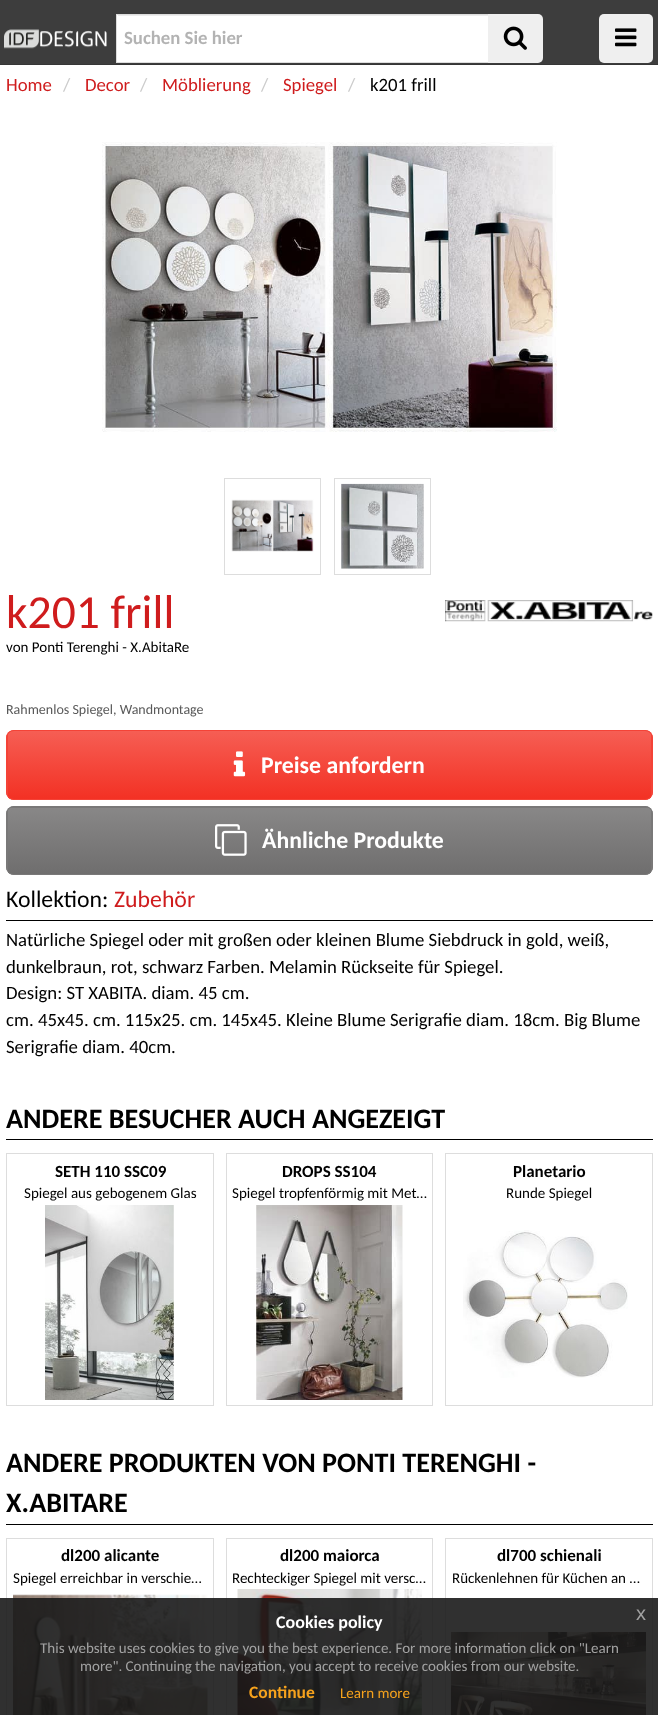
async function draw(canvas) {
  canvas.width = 658;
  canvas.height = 1715;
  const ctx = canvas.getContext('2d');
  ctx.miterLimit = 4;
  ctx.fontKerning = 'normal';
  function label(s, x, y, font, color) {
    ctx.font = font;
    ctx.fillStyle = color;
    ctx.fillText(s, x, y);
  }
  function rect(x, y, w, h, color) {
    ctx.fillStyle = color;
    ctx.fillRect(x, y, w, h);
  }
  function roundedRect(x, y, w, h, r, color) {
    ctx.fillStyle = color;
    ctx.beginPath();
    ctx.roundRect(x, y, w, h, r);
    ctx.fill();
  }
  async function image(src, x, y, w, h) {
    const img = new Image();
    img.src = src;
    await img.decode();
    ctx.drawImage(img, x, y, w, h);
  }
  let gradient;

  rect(0, 0, 658, 1715, '#fff');
  rect(0, 0, 658, 64, '#3d3d3d');
  rect(0, 64, 658, 1, '#363636');
  await image('assets/img1.png', 4, 29, 103, 20);
  rect(117, 15, 371, 47, '#fff');
  rect(118, 15, 370, 1, '#ececec');
  ctx.strokeStyle = '#ddd';
  ctx.strokeRect(116.5, 14.5, 372, 48);
  label('Suchen Sie hier', 124, 44, 'bold 18.75px Carlito', '#b3b3b3');
  ctx.fillStyle = '#efefef';
  ctx.beginPath();
  ctx.roundRect(488, 14, 55, 49, [0, 5, 5, 0]);
  ctx.fill();
  await image('assets/img2.png', 503, 26, 24, 24);
  roundedRect(599, 14, 54, 49, 5, '#efefef');
  await image('assets/img3.png', 615, 28, 22, 19);
  label('Home', 6, 91, '18.75px Carlito', '#cf1c1d');
  label('/', 63, 91, '18.75px Carlito', '#ccc');
  label('Decor', 85, 91, '18.75px Carlito', '#cf1c1d');
  label('/', 140, 91, '18.75px Carlito', '#ccc');
  label('Möblierung', 162, 91, '18.75px Carlito', '#cf1c1d');
  label('/', 261, 91, '18.75px Carlito', '#ccc');
  label('Spiegel', 283, 91, '18.75px Carlito', '#cf1c1d');
  label('/', 348, 91, '18.75px Carlito', '#ccc');
  label('k201 frill', 370, 91, '18.75px Carlito', '#000');
  await image('assets/img4.png', 102, 142, 455, 290);
  ctx.strokeRect(224.5, 478.5, 96, 96);
  await image('assets/img5.png', 231, 499, 83, 53);
  ctx.strokeRect(334.5, 478.5, 96, 96);
  await image('assets/img6.png', 341, 483, 83, 86);
  label('k201 frill', 6, 628, '47.5px Carlito', '#cf1c1d');
  label('von Ponti Terenghi - X.AbitaRe', 6, 652, '15px Carlito', '#000');
  await image('assets/img7.png', 445, 600, 208, 22);
  label('Rahmenlos Spiegel, Wandmontage', 6, 714, '14px Carlito', '#595959');
  roundedRect(6, 730, 647, 70, 8, '#f44337');
  ctx.save();
  ctx.beginPath();
  ctx.roundRect(6, 730, 647, 70, 8);
  ctx.clip();
  gradient = ctx.createLinearGradient(329, 731, 329, 799);
  gradient.addColorStop(0, '#f65e54');
  gradient.addColorStop(0.6, '#f44337');
  gradient.addColorStop(1, '#f33124');
  ctx.fillStyle = gradient;
  ctx.fillRect(8, 731, 643, 68);
  ctx.restore();
  ctx.beginPath();
  ctx.roundRect(6.5, 730.5, 646, 69, 7.5);
  ctx.strokeStyle = '#f44337';
  ctx.stroke();
  await image('assets/img8.png', 233, 751, 13, 26);
  label('Preise anfordern', 261, 773, 'bold 23.75px Carlito', '#fff');
  roundedRect(6, 806, 647, 69, 8, '#797878');
  ctx.save();
  ctx.beginPath();
  ctx.roundRect(6, 806, 647, 69, 8);
  ctx.clip();
  gradient = ctx.createLinearGradient(329, 808, 329, 874);
  gradient.addColorStop(0, '#888787');
  gradient.addColorStop(0.6, '#797878');
  gradient.addColorStop(1, '#6f6e6e');
  ctx.fillStyle = gradient;
  ctx.fillRect(8, 808, 643, 66);
  ctx.restore();
  ctx.beginPath();
  ctx.roundRect(6.5, 806.5, 646, 68, 7.5);
  ctx.strokeStyle = '#797878';
  ctx.stroke();
  await image('assets/img9.png', 215, 824, 32, 32);
  label('Ähnliche Produkte', 262, 848, 'bold 23.75px Carlito', '#fff');
  label('Kollektion:', 6, 907, '23.75px Carlito', '#000');
  label('Zubehör', 114, 907, '23.75px Carlito', '#cf1c1d');
  rect(6, 920, 647, 1, '#000');
  label('Natürliche Spiegel oder mit großen oder kleinen Blume Siebdruck in gold, weiß,', 6, 946, '18.75px Carlito', '#000');
  label('dunkelbraun, rot, schwarz Farben. Melamin Rückseite für Spiegel.', 6, 973, '18.75px Carlito', '#000');
  label('Design: ST XABITA. diam. 45 cm.', 6, 999, '18.75px Carlito', '#000');
  label('cm. 45x45. cm. 115x25. cm. 145x45. Kleine Blume Serigrafie diam. 18cm. Big Blume', 6, 1026, '18.75px Carlito', '#000');
  label('Serigrafie diam. 40cm.', 6, 1053, '18.75px Carlito', '#000');
  label('ANDERE BESUCHER AUCH ANGEZEIGT', 6, 1128, 'bold 28.1px Carlito', '#000');
  rect(6, 1139, 647, 1, '#000');
  ctx.strokeStyle = '#ddd';
  ctx.strokeRect(6.5, 1153.5, 207, 252);
  label('SETH 110 SSC09', 55, 1177, 'bold 17px Carlito', '#000');
  label('Spiegel aus gebogenem Glas', 24, 1198, '15px Carlito', '#000');
  await image('assets/img10.png', 45, 1205, 129, 195);
  ctx.strokeRect(226.5, 1153.5, 206, 252);
  label('DROPS SS104', 282, 1177, 'bold 17px Carlito', '#000');
  label('Spiegel tropfenförmig mit Met…', 232, 1198, '15px Carlito', '#000');
  await image('assets/img11.png', 256, 1205, 147, 195);
  ctx.strokeRect(445.5, 1153.5, 207, 252);
  label('Planetario', 513, 1177, 'bold 17px Carlito', '#000');
  label('Runde Spiegel', 506, 1198, '15px Carlito', '#000');
  await image('assets/img12.png', 463, 1230, 165, 148);
  label('ANDERE PRODUKTEN VON PONTI TERENGHI -', 6, 1472, 'bold 28.1px Carlito', '#000');
  label('X.ABITARE', 6, 1512, 'bold 28.1px Carlito', '#000');
  rect(6, 1524, 647, 1, '#000');
  ctx.strokeRect(6.5, 1538.5, 207, 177);
  label('dl200 alicante', 61, 1561, 'bold 17px Carlito', '#000');
  label('Spiegel erreichbar in verschie…', 13, 1583, '15px Carlito', '#000');
  await image('assets/img13.png', 13, 1594, 195, 121);
  ctx.strokeRect(226.5, 1538.5, 206, 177);
  label('dl200 maiorca', 280, 1561, 'bold 17px Carlito', '#000');
  label('Rechteckiger Spiegel mit versc…', 232, 1583, '15px Carlito', '#000');
  await image('assets/img14.png', 237, 1589, 185, 126);
  ctx.strokeRect(445.5, 1538.5, 207, 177);
  label('dl700 schienali', 497, 1561, 'bold 17px Carlito', '#000');
  label('Rückenlehnen für Küchen an …', 452, 1583, '15px Carlito', '#000');
  await image('assets/img15.png', 451, 1632, 195, 83);
  rect(0, 1598, 658, 117, '#191919e6');
  label('Cookies policy', 276, 1628, 'bold 18px Carlito', '#fff');
  label('x', 636, 1620, '20px Liberation Sans', '#a2a2a2');
  label('This website uses cookies to give you the best experience. For more information click on "Learn', 40, 1653, '15px Carlito', '#a2a2a2');
  label('more". Continuing the navigation, you accept to receive cookies from our website.', 80, 1671, '15px Carlito', '#a2a2a2');
  label('Continue', 249, 1698, 'bold 17.5px Carlito', '#f6a21d');
  label('Learn more', 340, 1698, '15px Carlito', '#f6a21d');
}

draw(document.querySelector('canvas'));
